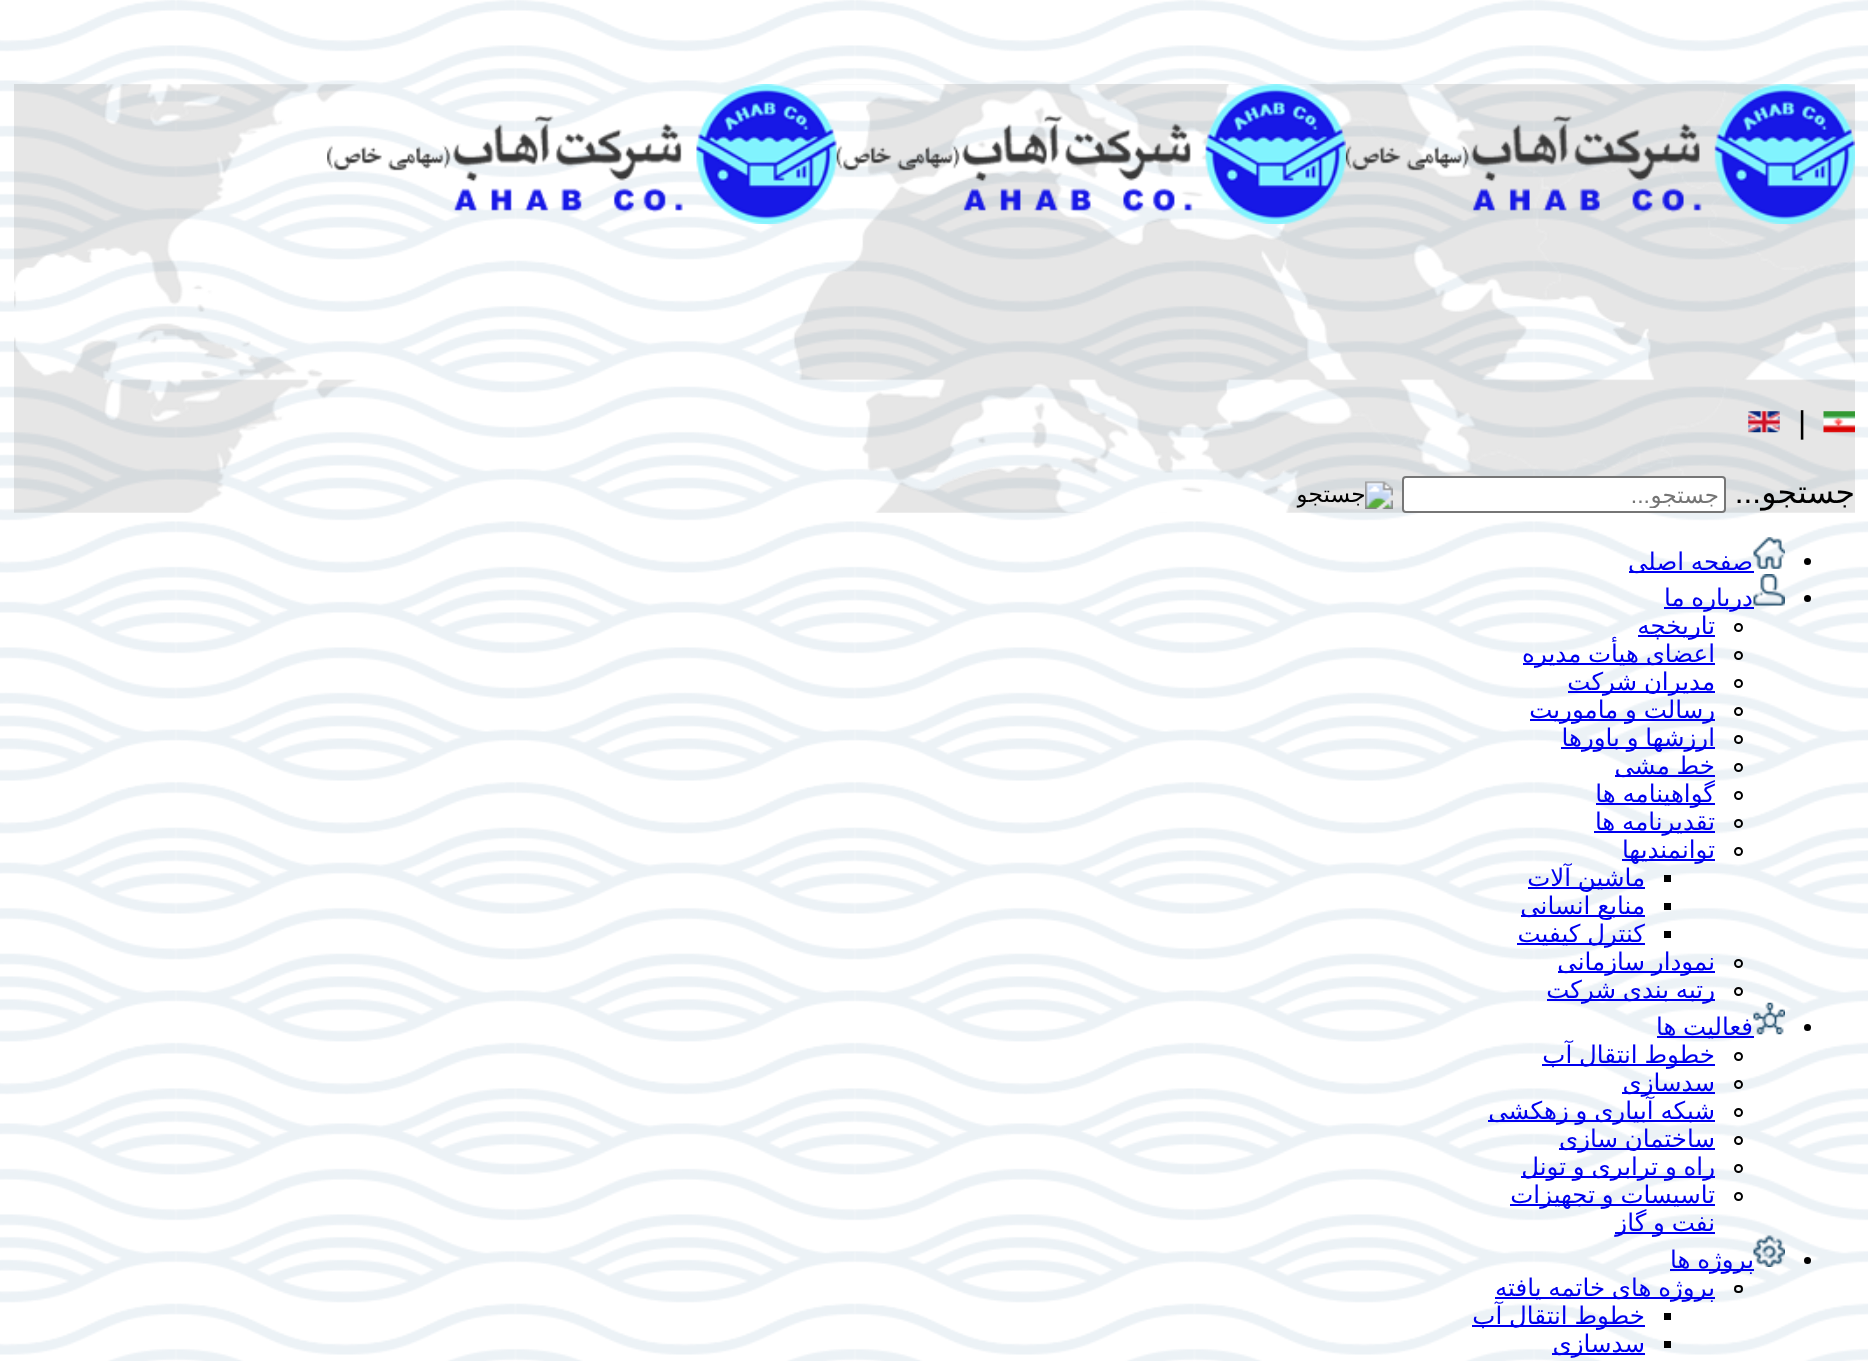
async function draw(canvas) {
  canvas.width = 1868;
  canvas.height = 1361;
  const ctx = canvas.getContext('2d');
  ctx.miterLimit = 4;
  ctx.fontKerning = 'normal';
  function label(s, x, y, font, color) {
    ctx.font = font;
    ctx.fillStyle = color;
    ctx.fillText(s, x, y);
  }
  function rect(x, y, w, h, color) {
    ctx.fillStyle = color;
    ctx.fillRect(x, y, w, h);
  }
  async function image(src, x, y, w, h) {
    const img = new Image();
    img.src = src;
    await img.decode();
    ctx.drawImage(img, x, y, w, h);
  }

  rect(0, 0, 1868, 1361, '#fff');
  await image('assets/img1.png', 0, 0, 1868, 1361);
  await image('assets/img2.png', 14, 84, 1841, 429);
  await image('assets/img3.png', 1345, 84, 510, 140);
  await image('assets/img4.png', 836, 84, 510, 140);
  await image('assets/img5.png', 327, 84, 510, 140);
  await image('assets/img6.png', 1823, 411, 32, 22);
  label('|', 1798, 433, '31.5px Liberation Sans', '#000');
  await image('assets/img7.png', 1748, 411, 32, 22);
  ctx.direction = 'rtl';
  label('جستجو', 1855, 503, '31.5px DejaVu Sans', '#000');
  label('...', 1761, 503, '31.5px Liberation Sans', '#000');
  ctx.fillStyle = '#fff';
  ctx.beginPath();
  ctx.roundRect(1403, 477, 322, 35, 3);
  ctx.fill();
  ctx.strokeStyle = '#767676';
  ctx.lineWidth = 2;
  ctx.stroke();
  ctx.save();
  ctx.beginPath();
  ctx.rect(1432, 481, 287, 27);
  ctx.clip();
  label('جستجو', 1719, 503, '23px DejaVu Sans', '#757575');
  ctx.restore();
  label('...', 1650, 503, '23px Liberation Sans', '#757575');
  await image('assets/img8.png', 1296, 481, 97, 29);
  ctx.fillStyle = '#000';
  ctx.beginPath();
  ctx.arc(1807.5, 561.5, 3.5, 0, 2 * Math.PI);
  ctx.fill();
  await image('assets/img9.png', 1753, 537, 32, 32);
  rect(1629, 571, 125, 2, '#00e');
  ctx.wordSpacing = '-1px';
  label('صفحه اصلی', 1753, 570, '24.5px DejaVu Sans', '#00e');
  ctx.fillStyle = '#000';
  ctx.beginPath();
  ctx.arc(1807.5, 598.5, 3.5, 0, 2 * Math.PI);
  ctx.fill();
  await image('assets/img10.png', 1753, 574, 32, 32);
  rect(1664, 607, 90, 2, '#00e');
  label('درباره ما', 1753, 606, '24.5px DejaVu Sans', '#00e');
  ctx.beginPath();
  ctx.arc(1738.5, 627.5, 3.5, 0, 2 * Math.PI);
  ctx.strokeStyle = '#000';
  ctx.stroke();
  rect(1638, 635, 77, 2, '#00e');
  ctx.wordSpacing = '0px';
  label('تاریخچه', 1715, 634, '24.5px DejaVu Sans', '#00e');
  ctx.beginPath();
  ctx.arc(1738.5, 655.5, 3.5, 0, 2 * Math.PI);
  ctx.stroke();
  rect(1523, 663, 192, 2, '#00e');
  ctx.wordSpacing = '-1px';
  label('اعضای هیأت مدیره', 1715, 662, '24.5px DejaVu Sans', '#00e');
  ctx.beginPath();
  ctx.arc(1738.5, 683.5, 3.5, 0, 2 * Math.PI);
  ctx.stroke();
  rect(1568, 691, 147, 2, '#00e');
  label('مدیران شرکت', 1715, 690, '24.5px DejaVu Sans', '#00e');
  ctx.beginPath();
  ctx.arc(1738.5, 711.5, 3.5, 0, 2 * Math.PI);
  ctx.stroke();
  rect(1530, 719, 185, 2, '#00e');
  label('رسالت و ماموریت', 1715, 718, '24.5px DejaVu Sans', '#00e');
  ctx.beginPath();
  ctx.arc(1738.5, 739.5, 3.5, 0, 2 * Math.PI);
  ctx.stroke();
  rect(1561, 747, 154, 2, '#00e');
  label('ارزشها و باورها', 1715, 746, '24.5px DejaVu Sans', '#00e');
  ctx.beginPath();
  ctx.arc(1738.5, 767.5, 3.5, 0, 2 * Math.PI);
  ctx.stroke();
  rect(1615, 775, 100, 2, '#00e');
  label('خط مشی', 1715, 774, '24.5px DejaVu Sans', '#00e');
  ctx.beginPath();
  ctx.arc(1738.5, 795.5, 3.5, 0, 2 * Math.PI);
  ctx.stroke();
  rect(1596, 803, 119, 2, '#00e');
  label('گواهینامه ها', 1715, 802, '24.5px DejaVu Sans', '#00e');
  ctx.beginPath();
  ctx.arc(1738.5, 823.5, 3.5, 0, 2 * Math.PI);
  ctx.stroke();
  rect(1594, 831, 121, 2, '#00e');
  label('تقدیرنامه ها', 1715, 830, '24.5px DejaVu Sans', '#00e');
  ctx.beginPath();
  ctx.arc(1738.5, 851.5, 3.5, 0, 2 * Math.PI);
  ctx.stroke();
  rect(1622, 859, 93, 2, '#00e');
  ctx.wordSpacing = '0px';
  label('توانمندیها', 1715, 858, '24.5px DejaVu Sans', '#00e');
  rect(1664, 875, 7, 7, '#000');
  rect(1528, 887, 117, 2, '#00e');
  ctx.wordSpacing = '-1px';
  label('ماشین آلات', 1645, 886, '24.5px DejaVu Sans', '#00e');
  rect(1664, 903, 7, 7, '#000');
  rect(1521, 915, 124, 2, '#00e');
  label('منابع انسانی', 1645, 914, '24.5px DejaVu Sans', '#00e');
  rect(1664, 931, 7, 7, '#000');
  rect(1517, 943, 128, 2, '#00e');
  label('کنترل کیفیت', 1645, 942, '24.5px DejaVu Sans', '#00e');
  ctx.beginPath();
  ctx.arc(1738.5, 963.5, 3.5, 0, 2 * Math.PI);
  ctx.stroke();
  rect(1558, 971, 157, 2, '#00e');
  label('نمودار سازمانی', 1715, 970, '24.5px DejaVu Sans', '#00e');
  ctx.beginPath();
  ctx.arc(1738.5, 991.5, 3.5, 0, 2 * Math.PI);
  ctx.stroke();
  rect(1547, 999, 168, 2, '#00e');
  label('رتبه بندی شرکت', 1715, 998, '24.5px DejaVu Sans', '#00e');
  ctx.fillStyle = '#000';
  ctx.beginPath();
  ctx.arc(1807.5, 1027.5, 3.5, 0, 2 * Math.PI);
  ctx.fill();
  await image('assets/img11.png', 1753, 1002, 32, 33);
  rect(1657, 1036, 97, 2, '#00e');
  label('فعالیت ها', 1753, 1035, '24.5px DejaVu Sans', '#00e');
  ctx.beginPath();
  ctx.arc(1738.5, 1056.5, 3.5, 0, 2 * Math.PI);
  ctx.stroke();
  rect(1542, 1064, 173, 2, '#00e');
  label('خطوط انتقال آب', 1715, 1063, '24.5px DejaVu Sans', '#00e');
  ctx.beginPath();
  ctx.arc(1738.5, 1084.5, 3.5, 0, 2 * Math.PI);
  ctx.stroke();
  rect(1622, 1092, 93, 2, '#00e');
  ctx.wordSpacing = '0px';
  label('سدسازی', 1715, 1091, '24.5px DejaVu Sans', '#00e');
  ctx.beginPath();
  ctx.arc(1738.5, 1112.5, 3.5, 0, 2 * Math.PI);
  ctx.stroke();
  rect(1488, 1120, 227, 2, '#00e');
  ctx.wordSpacing = '-1px';
  label('شبکه آبیاری و زهکشی', 1715, 1119, '24.5px DejaVu Sans', '#00e');
  ctx.beginPath();
  ctx.arc(1738.5, 1140.5, 3.5, 0, 2 * Math.PI);
  ctx.stroke();
  rect(1559, 1148, 156, 2, '#00e');
  label('ساختمان سازی', 1715, 1147, '24.5px DejaVu Sans', '#00e');
  ctx.beginPath();
  ctx.arc(1738.5, 1168.5, 3.5, 0, 2 * Math.PI);
  ctx.stroke();
  rect(1521, 1176, 194, 2, '#00e');
  label('راه و ترابری و تونل', 1715, 1175, '24.5px DejaVu Sans', '#00e');
  ctx.beginPath();
  ctx.arc(1738.5, 1196.5, 3.5, 0, 2 * Math.PI);
  ctx.stroke();
  rect(1510, 1204, 205, 2, '#00e');
  label('تاسیسات و تجهیزات', 1715, 1203, '24.5px DejaVu Sans', '#00e');
  rect(1615, 1232, 100, 2, '#00e');
  label('نفت و گاز', 1715, 1231, '24.5px DejaVu Sans', '#00e');
  ctx.fillStyle = '#000';
  ctx.beginPath();
  ctx.arc(1807.5, 1260.5, 3.5, 0, 2 * Math.PI);
  ctx.fill();
  await image('assets/img12.png', 1753, 1235, 32, 32);
  rect(1670, 1269, 84, 2, '#00e');
  label('پروژه ها', 1754, 1268, '24.5px DejaVu Sans', '#00e');
  ctx.beginPath();
  ctx.roundRect(1735, 1286, 7, 6, 3);
  ctx.stroke();
  rect(1495, 1297, 220, 2, '#00e');
  label('پروژه های خاتمه یافته', 1715, 1296, '24.5px DejaVu Sans', '#00e');
  rect(1664, 1313, 7, 7, '#000');
  rect(1472, 1325, 173, 2, '#00e');
  label('خطوط انتقال آب', 1645, 1324, '24.5px DejaVu Sans', '#00e');
  rect(1664, 1341, 7, 7, '#000');
  rect(1552, 1353, 93, 2, '#00e');
  ctx.wordSpacing = '0px';
  label('سدسازی', 1645, 1352, '24.5px DejaVu Sans', '#00e');
}

draw(document.querySelector('canvas'));
